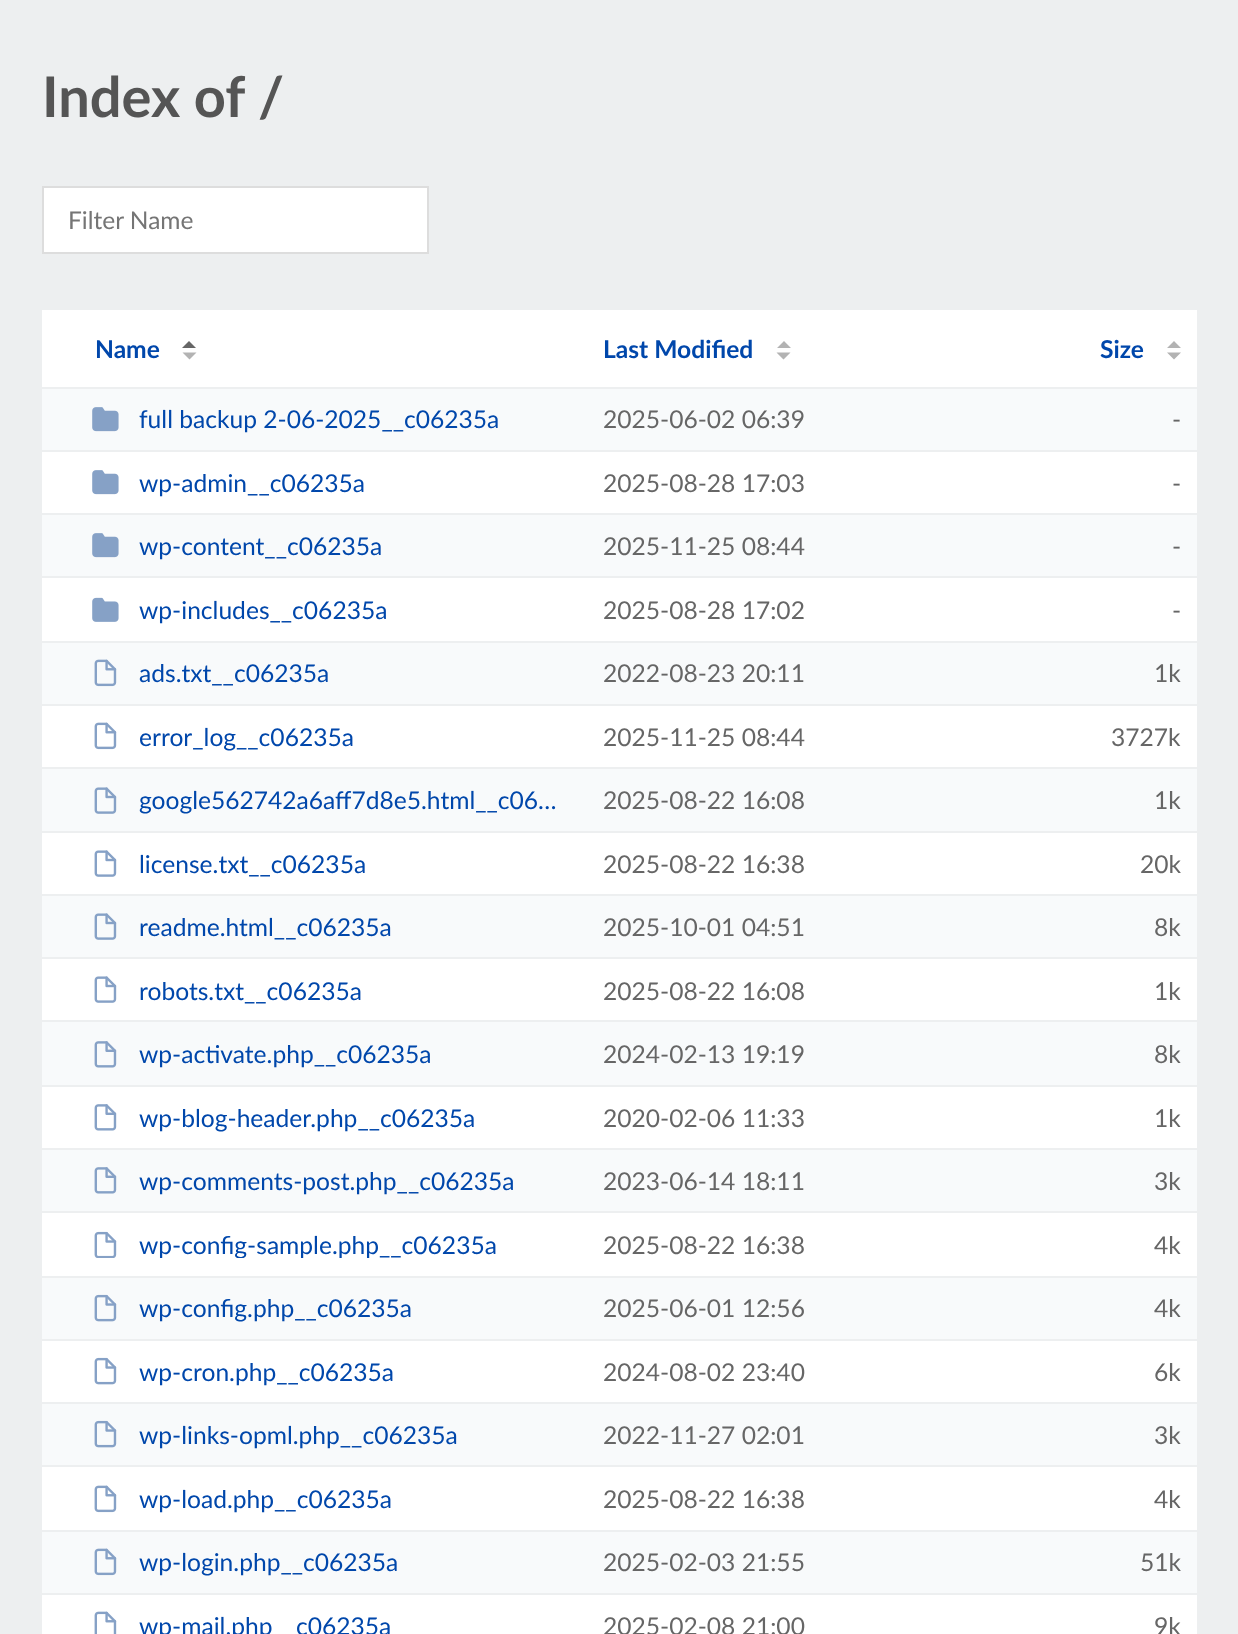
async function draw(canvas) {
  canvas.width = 1238;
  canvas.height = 1634;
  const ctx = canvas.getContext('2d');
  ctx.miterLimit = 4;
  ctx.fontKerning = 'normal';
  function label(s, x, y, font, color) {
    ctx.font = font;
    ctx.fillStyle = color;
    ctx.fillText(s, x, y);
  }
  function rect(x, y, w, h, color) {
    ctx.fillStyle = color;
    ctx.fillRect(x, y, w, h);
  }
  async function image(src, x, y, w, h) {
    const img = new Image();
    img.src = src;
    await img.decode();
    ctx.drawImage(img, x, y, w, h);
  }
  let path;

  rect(0, 0, 1238, 1634, '#edeff0');
  label('Index of /', 42, 117, 'bold 56px Lato', '#555');
  ctx.fillStyle = '#fff';
  ctx.beginPath();
  ctx.rect(43, 187, 385, 66);
  ctx.fill();
  ctx.strokeStyle = '#ddd';
  ctx.lineWidth = 2;
  ctx.stroke();
  label('Filter Name', 68, 229, '24.5px Lato', '#757575');
  rect(42, 310, 1155, 1324, '#fff');
  label('Name', 95, 358, 'bold 24.6px Lato', '#0047ab');
  ctx.fillStyle = '#666';
  path = new Path2D('M196 348H182L189 341Z');
  ctx.fill(path);
  ctx.fillStyle = '#b3b3b3';
  path = new Path2D('M182.5 352.5H196.5L189.5 359.5Z');
  ctx.fill(path);
  label('Last Modified', 603, 358, 'bold 24.6px Lato', '#0047ab');
  ctx.fillStyle = '#b3b3b3';
  path = new Path2D('M791 348H777L784 341ZM776.5 352.5H790.5L783.5 359.5Z');
  ctx.fill(path);
  label('Size', 1100, 358, 'bold 24.6px Lato', '#0047ab');
  ctx.fillStyle = '#b3b3b3';
  path = new Path2D('M1181 348H1167L1174 341ZM1167 352.5H1181L1174 359.5Z');
  ctx.fill(path);
  rect(42, 389, 1155, 61, '#f8fafb');
  rect(42, 387, 1155, 2, '#edeff0');
  rect(42, 450, 1155, 2, '#edeff0');
  await image('assets/img1.png', 92, 407, 27, 25);
  label('full backup 2-06-2025__c06235a', 139, 428, '24.6px Lato', '#0047ab');
  label('2025-06-02 06:39', 603, 428, '24.6px Lato', '#666');
  label('-', 1172, 428, '24.6px Lato', '#666');
  await image('assets/img2.png', 92, 470, 27, 25);
  label('wp-admin__c06235a', 139, 492, '24.6px Lato', '#0047ab');
  label('2025-08-28 17:03', 603, 492, '24.6px Lato', '#666');
  label('-', 1172, 492, '24.6px Lato', '#666');
  rect(42, 515, 1155, 61, '#f8fafb');
  rect(42, 513, 1155, 2, '#edeff0');
  rect(42, 576, 1155, 2, '#edeff0');
  await image('assets/img1.png', 92, 533, 27, 25);
  label('wp-content__c06235a', 139, 555, '24.6px Lato', '#0047ab');
  label('2025-11-25 08:44', 603, 555, '24.6px Lato', '#666');
  label('-', 1172, 555, '24.6px Lato', '#666');
  await image('assets/img3.png', 92, 597, 27, 25);
  label('wp-includes__c06235a', 139, 619, '24.6px Lato', '#0047ab');
  label('2025-08-28 17:02', 603, 619, '24.6px Lato', '#666');
  label('-', 1172, 619, '24.6px Lato', '#666');
  rect(42, 643, 1155, 61, '#f8fafb');
  rect(42, 641, 1155, 2, '#edeff0');
  rect(42, 704, 1155, 2, '#edeff0');
  await image('assets/img4.png', 94, 659, 23, 28);
  label('ads.txt__c06235a', 139, 682, '24.6px Lato', '#0047ab');
  label('2022-08-23 20:11', 603, 682, '24.6px Lato', '#666');
  label('1k', 1154, 682, '24.6px Lato', '#666');
  await image('assets/img5.png', 94, 722, 23, 28);
  label('error_log__c06235a', 139, 746, '24.6px Lato', '#0047ab');
  label('2025-11-25 08:44', 603, 746, '24.6px Lato', '#666');
  label('3727k', 1111, 746, '24.6px Lato', '#666');
  rect(42, 769, 1155, 62, '#f8fafb');
  rect(42, 767, 1155, 2, '#edeff0');
  rect(42, 831, 1155, 2, '#edeff0');
  await image('assets/img6.png', 94, 787, 23, 27);
  label('google562742a6aff7d8e5.html__c06…', 139, 809, '24.6px Lato', '#0047ab');
  label('2025-08-22 16:08', 603, 809, '24.6px Lato', '#666');
  label('1k', 1154, 809, '24.6px Lato', '#666');
  await image('assets/img7.png', 94, 850, 23, 27);
  label('license.txt__c06235a', 139, 873, '24.6px Lato', '#0047ab');
  label('2025-08-22 16:38', 603, 873, '24.6px Lato', '#666');
  label('20k', 1140, 873, '24.6px Lato', '#666');
  rect(42, 896, 1155, 61, '#f8fafb');
  rect(42, 894, 1155, 2, '#edeff0');
  rect(42, 957, 1155, 2, '#edeff0');
  await image('assets/img6.png', 94, 913, 23, 27);
  label('readme.html__c06235a', 139, 936, '24.6px Lato', '#0047ab');
  label('2025-10-01 04:51', 603, 936, '24.6px Lato', '#666');
  label('8k', 1154, 936, '24.6px Lato', '#666');
  await image('assets/img7.png', 94, 976, 23, 27);
  label('robots.txt__c06235a', 139, 1000, '24.6px Lato', '#0047ab');
  label('2025-08-22 16:08', 603, 1000, '24.6px Lato', '#666');
  label('1k', 1154, 1000, '24.6px Lato', '#666');
  rect(42, 1022, 1155, 63, '#f8fafb');
  rect(42, 1020, 1155, 2, '#edeff0');
  rect(42, 1085, 1155, 2, '#edeff0');
  await image('assets/img8.png', 94, 1041, 23, 27);
  label('wp-activate.php__c06235a', 139, 1063, '24.6px Lato', '#0047ab');
  label('2024-02-13 19:19', 603, 1063, '24.6px Lato', '#666');
  label('8k', 1154, 1063, '24.6px Lato', '#666');
  await image('assets/img9.png', 94, 1104, 23, 27);
  label('wp-blog-header.php__c06235a', 139, 1127, '24.6px Lato', '#0047ab');
  label('2020-02-06 11:33', 603, 1127, '24.6px Lato', '#666');
  label('1k', 1154, 1127, '24.6px Lato', '#666');
  rect(42, 1150, 1155, 61, '#f8fafb');
  rect(42, 1148, 1155, 2, '#edeff0');
  rect(42, 1211, 1155, 2, '#edeff0');
  await image('assets/img8.png', 94, 1167, 23, 27);
  label('wp-comments-post.php__c06235a', 139, 1190, '24.6px Lato', '#0047ab');
  label('2023-06-14 18:11', 603, 1190, '24.6px Lato', '#666');
  label('3k', 1154, 1190, '24.6px Lato', '#666');
  await image('assets/img10.png', 94, 1231, 23, 27);
  ctx.save();
  ctx.beginPath();
  ctx.rect(91, 1229, 480, 29);
  ctx.clip();
  label('wp-config-sample.php__c06235a', 139, 1254, '24.6px Lato', '#0047ab');
  ctx.restore();
  label('2025-08-22 16:38', 603, 1254, '24.6px Lato', '#666');
  label('4k', 1154, 1254, '24.6px Lato', '#666');
  rect(42, 1278, 1155, 61, '#f8fafb');
  rect(42, 1276, 1155, 2, '#edeff0');
  rect(42, 1339, 1155, 2, '#edeff0');
  await image('assets/img11.png', 94, 1294, 23, 28);
  label('wp-config.php__c06235a', 139, 1317, '24.6px Lato', '#0047ab');
  label('2025-06-01 12:56', 603, 1317, '24.6px Lato', '#666');
  label('4k', 1154, 1317, '24.6px Lato', '#666');
  await image('assets/img12.png', 94, 1357, 23, 28);
  label('wp-cron.php__c06235a', 139, 1381, '24.6px Lato', '#0047ab');
  label('2024-08-02 23:40', 603, 1381, '24.6px Lato', '#666');
  label('6k', 1154, 1381, '24.6px Lato', '#666');
  rect(42, 1404, 1155, 61, '#f8fafb');
  rect(42, 1402, 1155, 2, '#edeff0');
  rect(42, 1465, 1155, 2, '#edeff0');
  await image('assets/img11.png', 94, 1420, 23, 28);
  label('wp-links-opml.php__c06235a', 139, 1444, '24.6px Lato', '#0047ab');
  label('2022-11-27 02:01', 603, 1444, '24.6px Lato', '#666');
  label('3k', 1154, 1444, '24.6px Lato', '#666');
  await image('assets/img5.png', 94, 1485, 23, 28);
  label('wp-load.php__c06235a', 139, 1508, '24.6px Lato', '#0047ab');
  label('2025-08-22 16:38', 603, 1508, '24.6px Lato', '#666');
  label('4k', 1154, 1508, '24.6px Lato', '#666');
  rect(42, 1532, 1155, 61, '#f8fafb');
  rect(42, 1530, 1155, 2, '#edeff0');
  rect(42, 1593, 1155, 2, '#edeff0');
  await image('assets/img4.png', 94, 1548, 23, 28);
  label('wp-login.php__c06235a', 139, 1571, '24.6px Lato', '#0047ab');
  label('2025-02-03 21:55', 603, 1571, '24.6px Lato', '#666');
  label('51k', 1140, 1571, '24.6px Lato', '#666');
  await image('assets/img13.png', 94, 1611, 23, 23);
  label('wp-mail.php', 139, 1635, '24.6px Lato', '#0047ab');
  label('c06235a', 296, 1635, '24.6px Lato', '#0047ab');
  label('2025-02-08 21:00', 603, 1635, '24.6px Lato', '#666');
  label('9k', 1154, 1635, '24.6px Lato', '#666');
}

draw(document.querySelector('canvas'));
